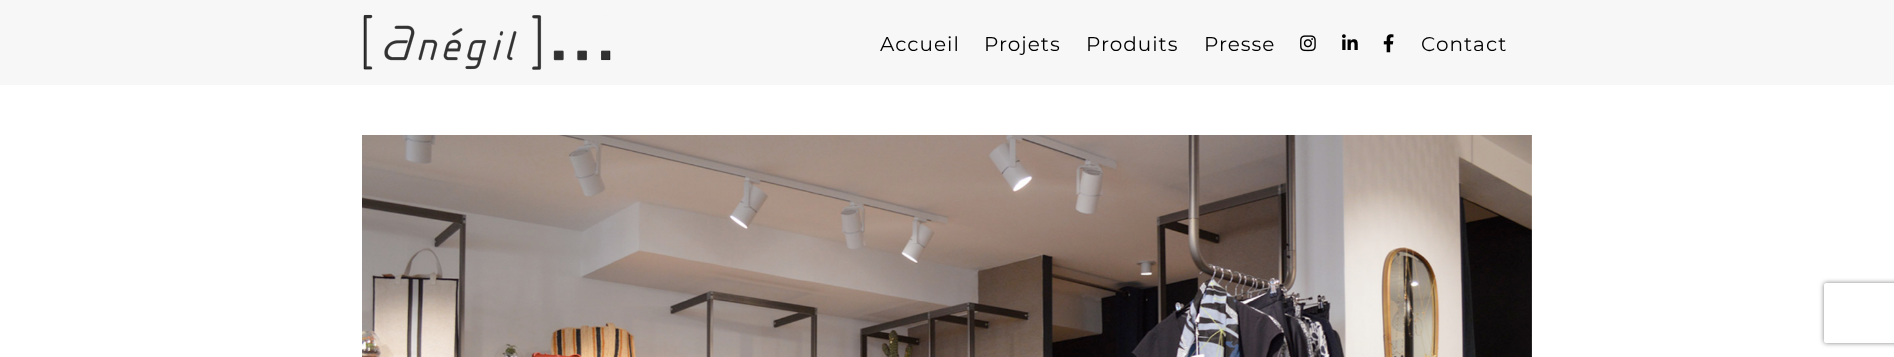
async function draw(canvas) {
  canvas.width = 1894;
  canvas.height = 357;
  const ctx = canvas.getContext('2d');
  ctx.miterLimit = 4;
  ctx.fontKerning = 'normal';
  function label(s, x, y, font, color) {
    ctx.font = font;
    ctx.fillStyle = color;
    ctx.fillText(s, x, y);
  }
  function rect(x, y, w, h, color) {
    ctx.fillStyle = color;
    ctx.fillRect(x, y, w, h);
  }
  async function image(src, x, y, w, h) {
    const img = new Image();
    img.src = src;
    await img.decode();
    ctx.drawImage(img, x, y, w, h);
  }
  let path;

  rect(0, 0, 1894, 357, '#fff');
  rect(0, 0, 1894, 85, '#f7f7f7');
  await image('assets/img1.png', 363, 14, 248, 56);
  ctx.letterSpacing = '1px';
  label('Accueil', 880, 51, '100 20px Montserrat', '#000');
  label('Projets', 984, 51, '100 20px Montserrat', '#000');
  label('Produits', 1086, 51, '100 20px Montserrat', '#000');
  label('Presse', 1204, 51, '100 20px Montserrat', '#000');
  await image('assets/img2.png', 1300, 35, 16, 17);
  await image('assets/img3.png', 1342, 34, 16, 16);
  await image('assets/img4.png', 1383, 34, 11, 19);
  label('Contact', 1421, 51, '100 20px Montserrat', '#000');
  await image('assets/img5.png', 362, 135, 1170, 222);
  ctx.save();
  path = new Path2D('M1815 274H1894V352H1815ZM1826 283H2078C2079 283 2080 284 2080 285V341C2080 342 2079 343 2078 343H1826C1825 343 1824 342 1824 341V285C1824 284 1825 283 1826 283Z');
  ctx.clip(path, 'evenodd');
  ctx.fillStyle = '#808080';
  ctx.filter = 'blur(2.5px)';
  ctx.beginPath();
  ctx.roundRect(1824, 283, 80, 60, 2);
  ctx.fill();
  ctx.filter = 'none';
  ctx.restore();
}

draw(document.querySelector('canvas'));
